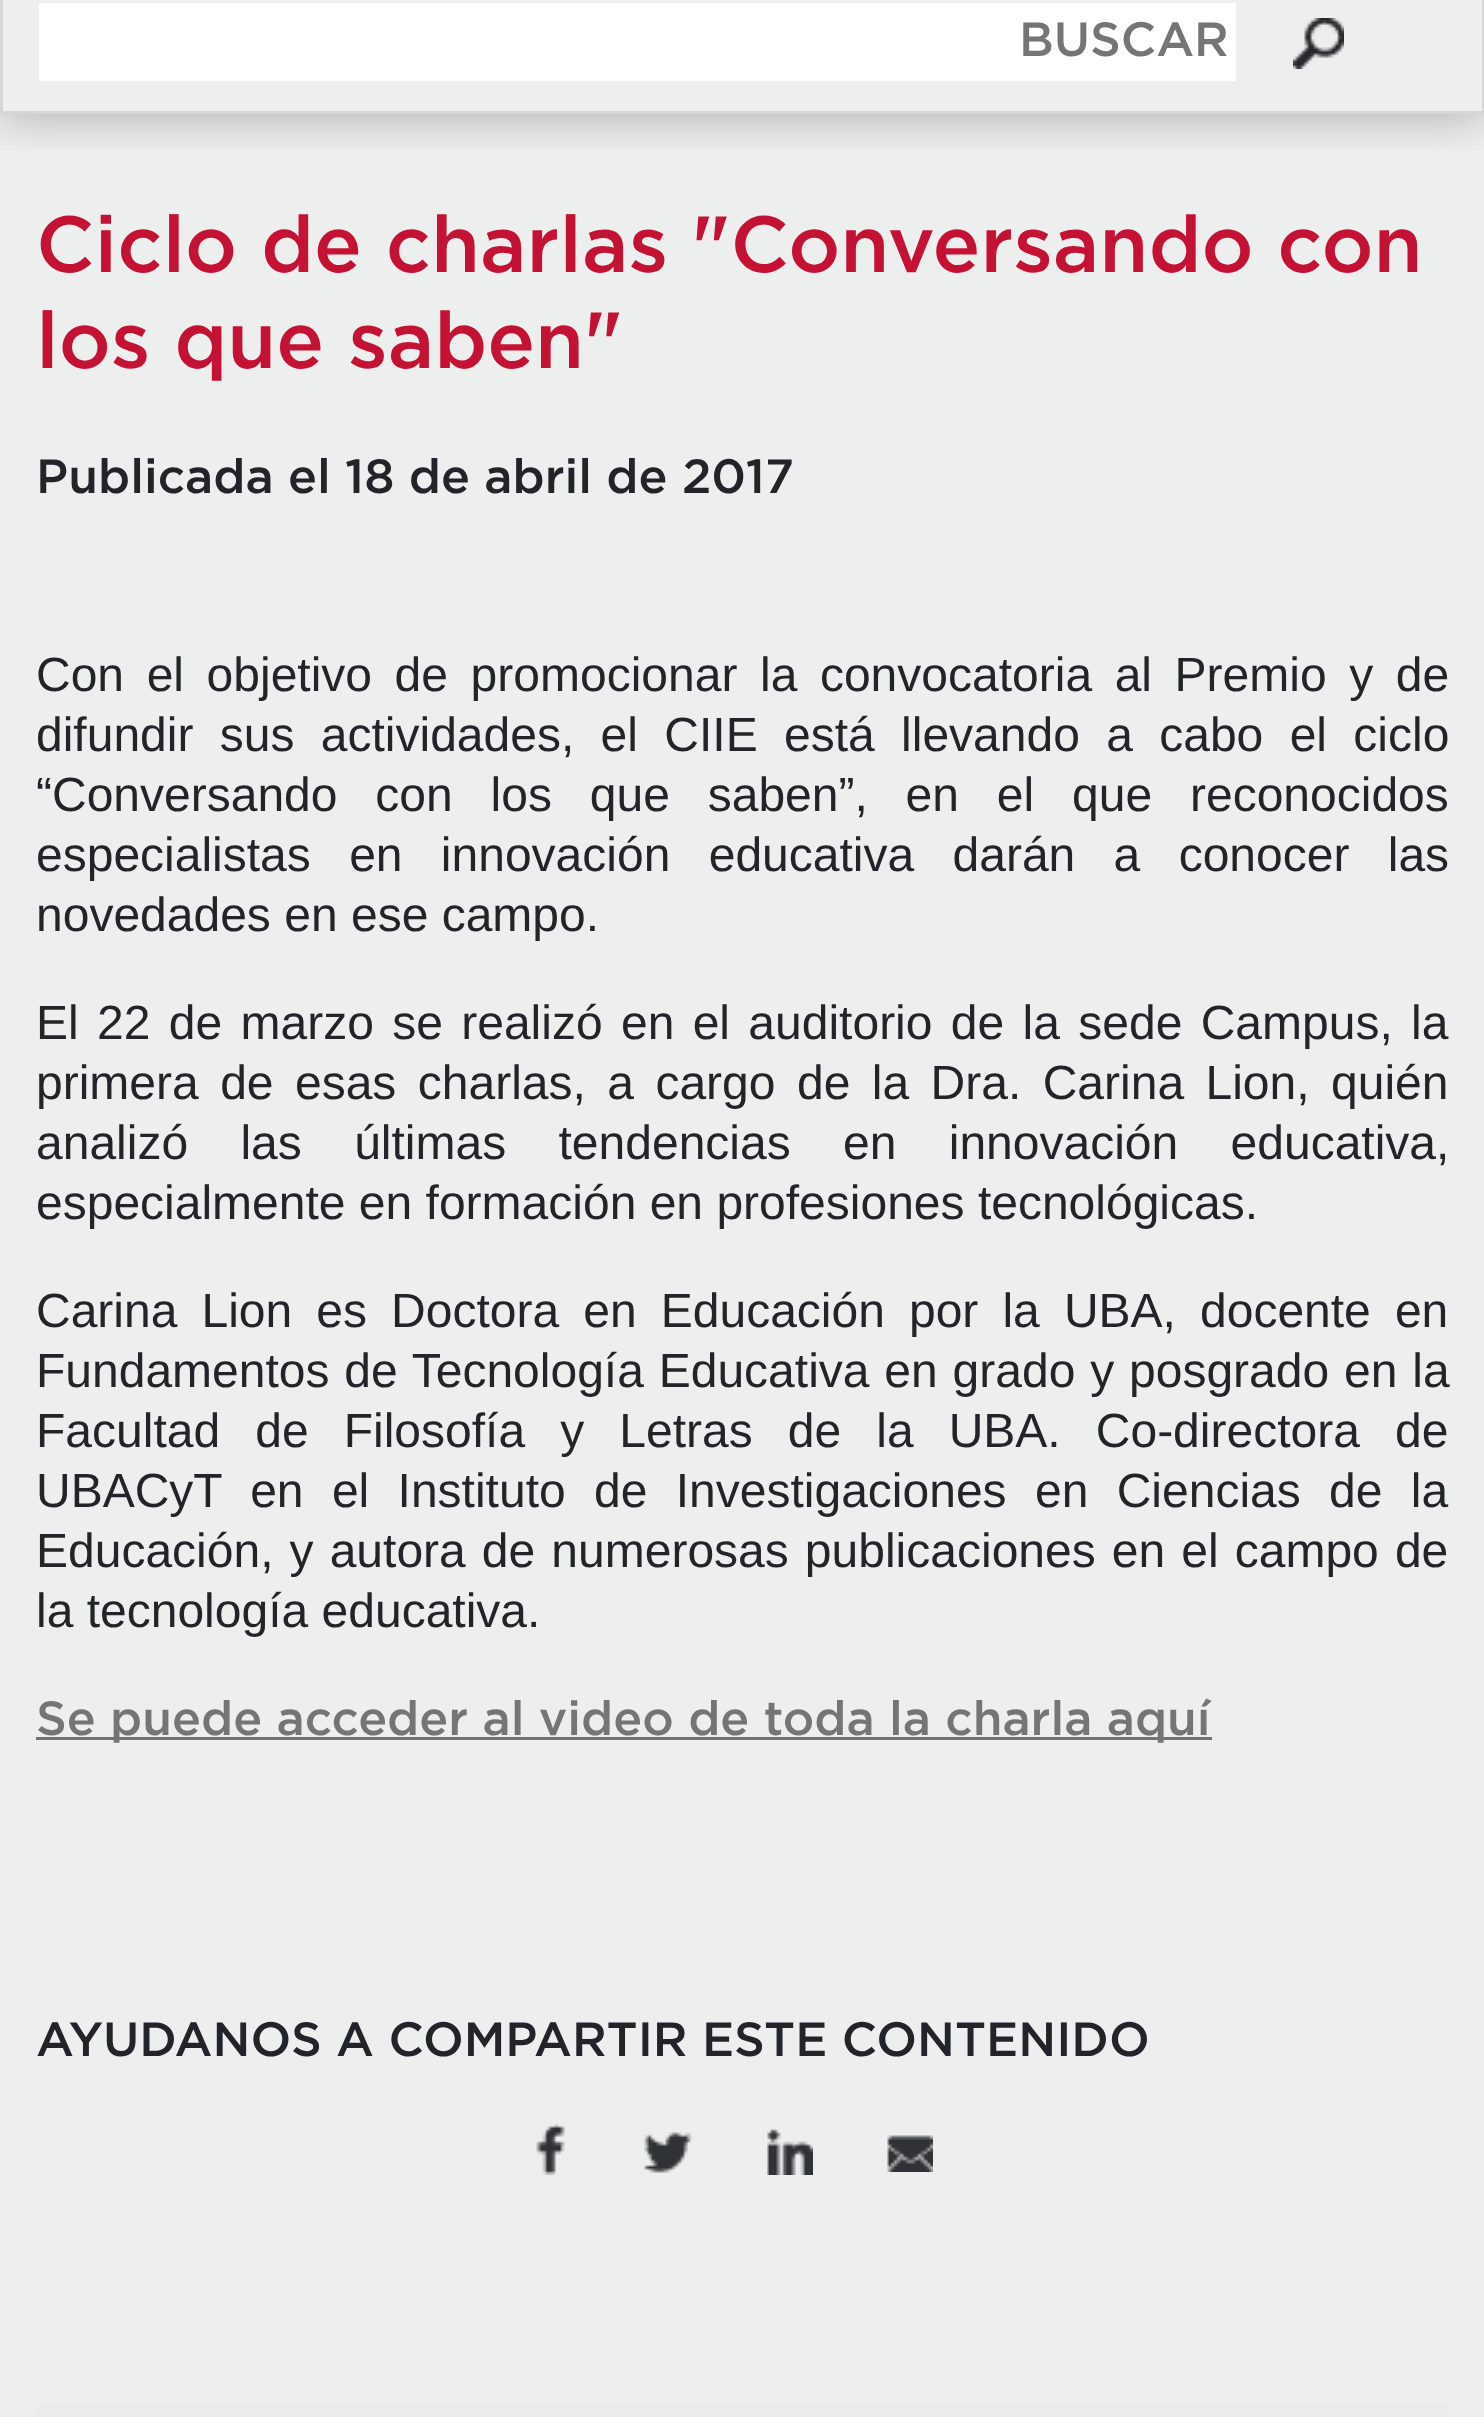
async function draw(canvas) {
  canvas.width = 1484;
  canvas.height = 2417;
  const ctx = canvas.getContext('2d');
  ctx.miterLimit = 4;
  ctx.fontKerning = 'normal';
  function label(s, x, y, font, color) {
    ctx.font = font;
    ctx.fillStyle = color;
    ctx.fillText(s, x, y);
  }
  function rect(x, y, w, h, color) {
    ctx.fillStyle = color;
    ctx.fillRect(x, y, w, h);
  }
  async function image(src, x, y, w, h) {
    const img = new Image();
    img.src = src;
    await img.decode();
    ctx.drawImage(img, x, y, w, h);
  }

  rect(0, 0, 1484, 2417, '#edefef');
  ctx.save();
  ctx.beginPath();
  ctx.rect(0, 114, 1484, 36);
  ctx.clip();
  ctx.fillStyle = '#0000004d';
  ctx.filter = 'blur(24px)';
  ctx.beginPath();
  ctx.rect(0, -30, 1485, 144);
  ctx.fill();
  ctx.filter = 'none';
  ctx.restore();
  ctx.strokeStyle = '#d5d7d7';
  ctx.lineWidth = 3;
  ctx.strokeRect(1.5, -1.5, 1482, 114);
  rect(39, 3, 1197, 78, '#fff');
  label('BUSCAR', 1019, 56, '500 48px Gotham', '#757575');
  await image('assets/img1.png', 1293, 18, 51, 51);
  label('Ciclo de charlas "Conversando con', 36, 272, '500 79.25px Gotham', '#c41234');
  label('los que saben"', 36, 368, '500 79.25px Gotham', '#c41234');
  label('Publicada el 18 de abril de 2017', 36, 493, '500 48px Gotham', '#212529');
  ctx.wordSpacing = '9.25px';
  label('Con el objetivo de promocionar la convocatoria al Premio y de', 36, 691, '48px Liberation Sans', '#212529');
  ctx.wordSpacing = '13px';
  label('difundir sus actividades, el CIIE está llevando a cabo el ciclo', 36, 751, '48px Liberation Sans', '#212529');
  ctx.wordSpacing = '24.5px';
  label('“Conversando con los que saben”, en el que reconocidos', 36, 811, '48px Liberation Sans', '#212529');
  ctx.wordSpacing = '25px';
  label('especialistas en innovación educativa darán a conocer las', 36, 871, '48px Liberation Sans', '#212529');
  ctx.wordSpacing = '0px';
  label('novedades en ese campo.', 36, 931, '48px Liberation Sans', '#212529');
  ctx.wordSpacing = '5px';
  label('El 22 de marzo se realizó en el auditorio de la sede Campus, la', 36, 1039, '48px Liberation Sans', '#212529');
  ctx.wordSpacing = '8.1px';
  label('primera de esas charlas, a cargo de la Dra. Carina Lion, quién', 36, 1099, '48px Liberation Sans', '#212529');
  ctx.wordSpacing = '39px';
  label('analizó las últimas tendencias en innovación educativa,', 36, 1159, '48px Liberation Sans', '#212529');
  ctx.wordSpacing = '0px';
  label('especialmente en formación en profesiones tecnológicas.', 36, 1219, '48px Liberation Sans', '#212529');
  ctx.wordSpacing = '10.75px';
  label('Carina Lion es Doctora en Educación por la UBA, docente en', 36, 1327, '48px Liberation Sans', '#212529');
  ctx.wordSpacing = '1.5px';
  label('Fundamentos de Tecnología Educativa en grado y posgrado en la', 36, 1387, '48px Liberation Sans', '#212529');
  ctx.wordSpacing = '21.75px';
  label('Facultad de Filosofía y Letras de la UBA. Co-directora de', 36, 1447, '48px Liberation Sans', '#212529');
  ctx.wordSpacing = '15px';
  label('UBACyT en el Instituto de Investigaciones en Ciencias de la', 36, 1507, '48px Liberation Sans', '#212529');
  ctx.wordSpacing = '2.75px';
  label('Educación, y autora de numerosas publicaciones en el campo de', 36, 1567, '48px Liberation Sans', '#212529');
  ctx.wordSpacing = '0px';
  label('la tecnología educativa.', 36, 1627, '48px Liberation Sans', '#212529');
  rect(36, 1737, 1176, 3, '#727272');
  label('Se puede acceder al video de toda la charla aquí', 36, 1735, '500 48px Gotham', '#757575');
  label('AYUDANOS A COMPARTIR ESTE CONTENIDO', 36, 2056, '500 48px Gotham', '#212529');
  await image('assets/img2.png', 536, 2124, 29, 51);
  await image('assets/img3.png', 644, 2132, 49, 41);
  await image('assets/img4.png', 767, 2129, 46, 46);
  await image('assets/img5.png', 887, 2135, 46, 37);
  rect(36, 2403, 1413, 14, '#ececec');
}

draw(document.querySelector('canvas'));
